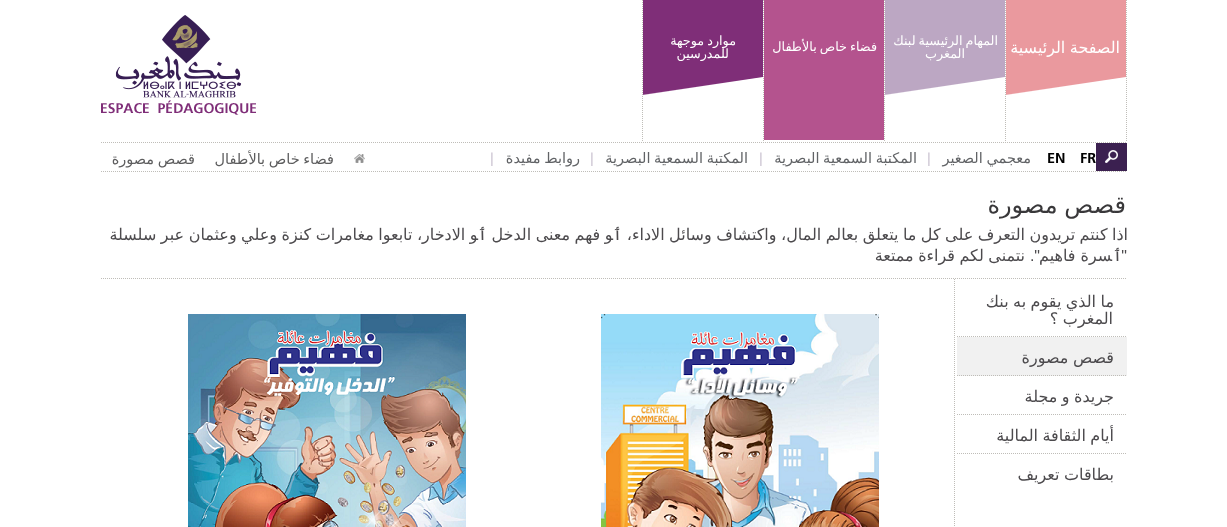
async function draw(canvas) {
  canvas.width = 1227;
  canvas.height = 527;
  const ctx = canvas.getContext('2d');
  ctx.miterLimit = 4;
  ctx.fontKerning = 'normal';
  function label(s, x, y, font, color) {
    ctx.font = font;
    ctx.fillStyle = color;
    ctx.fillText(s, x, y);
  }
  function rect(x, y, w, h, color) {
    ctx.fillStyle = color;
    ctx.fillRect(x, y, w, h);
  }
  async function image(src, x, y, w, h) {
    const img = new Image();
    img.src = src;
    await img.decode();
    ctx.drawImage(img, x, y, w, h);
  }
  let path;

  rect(0, 0, 1227, 527, '#fff');
  path = new Path2D('M642.5 0V142');
  ctx.strokeStyle = '#bfbdb8';
  ctx.setLineDash([1, 1]);
  ctx.stroke(path);
  path = new Path2D('M1126.5 0V142');
  ctx.stroke(path);
  await image('assets/img1.png', 1006, 0, 120, 95);
  ctx.wordSpacing = '-0.6px';
  ctx.direction = 'rtl';
  label('الصفحة الرئيسية', 1120, 53, '16px DejaVu Sans', '#fff');
  path = new Path2D('M1005.5 0V142');
  ctx.stroke(path);
  await image('assets/img2.png', 885, 0, 120, 95);
  ctx.wordSpacing = '-1px';
  label('المهام الرئيسية لبنك', 998, 45, '12.75px DejaVu Sans', '#fff');
  ctx.wordSpacing = '0px';
  label('المغرب', 965, 58, '12.75px DejaVu Sans', '#fff');
  path = new Path2D('M884.5 0V142');
  ctx.stroke(path);
  rect(764, 0, 120, 140, '#b4538e');
  ctx.wordSpacing = '-1px';
  label('فضاء خاص بالأطفال', 877, 51, '12.75px DejaVu Sans', '#fff');
  path = new Path2D('M763.5 0V142');
  ctx.stroke(path);
  await image('assets/img3.png', 643, 0, 120, 95);
  label('موارد موجهة', 736, 45, '12.75px DejaVu Sans', '#fff');
  ctx.wordSpacing = '0px';
  label('للمدرسين', 729, 58, '12.75px DejaVu Sans', '#fff');
  await image('assets/img4.png', 101, 15, 155, 100);
  path = new Path2D('M101 142.5H1127');
  ctx.stroke(path);
  path = new Path2D('M101 171.5H1127');
  ctx.stroke(path);
  rect(1096, 143, 31, 28, '#3b2050');
  await image('assets/img5.png', 1105, 150, 13, 13);
  ctx.direction = 'ltr';
  label('FR', 1080, 163, 'bold 14.5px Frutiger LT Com', '#000');
  label('EN', 1047, 163, 'bold 14.5px Frutiger LT Com', '#000');
  ctx.wordSpacing = '-1px';
  ctx.direction = 'rtl';
  label('معجمي الصغير', 1031, 163, '14.5px DejaVu Sans', '#616366');
  ctx.wordSpacing = '0px';
  ctx.direction = 'ltr';
  label('|', 927, 163, '14.5px Liberation Sans', '#c9c1cf');
  ctx.wordSpacing = '-1px';
  ctx.direction = 'rtl';
  label('المكتبة السمعية البصرية', 917, 163, '14.5px DejaVu Sans', '#616366');
  ctx.wordSpacing = '0px';
  ctx.direction = 'ltr';
  label('|', 759, 163, '14.5px Liberation Sans', '#c9c1cf');
  ctx.wordSpacing = '-1px';
  ctx.direction = 'rtl';
  label('المكتبة السمعية البصرية', 748, 163, '14.5px DejaVu Sans', '#616366');
  ctx.wordSpacing = '0px';
  ctx.direction = 'ltr';
  label('|', 590, 163, '14.5px Liberation Sans', '#c9c1cf');
  ctx.wordSpacing = '-1px';
  ctx.direction = 'rtl';
  label('روابط مفيدة', 580, 163, '14.5px DejaVu Sans', '#616366');
  ctx.wordSpacing = '0px';
  ctx.direction = 'ltr';
  label('|', 490, 163, '14.5px Liberation Sans', '#c9c1cf');
  await image('assets/img6.png', 354, 154, 11, 9);
  ctx.wordSpacing = '-1px';
  ctx.direction = 'rtl';
  label('فضاء خاص بالأطفال', 334, 164, '14.5px DejaVu Sans', '#5d5d5e');
  label('قصص مصورة', 195, 164, '14.5px DejaVu Sans', '#5d5d5e');
  label('قصص مصورة', 1126, 213, '24px DejaVu Sans', '#39383a');
  ctx.wordSpacing = '-0.6px';
  label('‍و فهم معنى الدخل', 613, 240, '16px DejaVu Sans', '#4c4a4d');
  ctx.wordSpacing = '0px';
  label('ٲ‍', 622, 240, '16px Cascadia Code', '#4c4a4d');
  ctx.wordSpacing = '-0.6px';
  label('‍و الادخار، تابعوا مغامرات كنزة وعلي وعثمان', 478, 240, '16px DejaVu Sans', '#4c4a4d');
  ctx.wordSpacing = '0px';
  label('ٲ‍', 487, 240, '16px Cascadia Code', '#4c4a4d');
  ctx.wordSpacing = '-0.6px';
  label('عبر سلسلة', 184, 240, '16px DejaVu Sans', '#4c4a4d');
  label('اذا كنتم تريدون التعرف على كل ما يتعلق بعالم المال، واكتشاف وسائل الاداء،', 1128, 240, '16px DejaVu Sans', '#4c4a4d');
  ctx.wordSpacing = '0px';
  label('"', 1127, 261, '16px Liberation Sans', '#4c4a4d');
  label('ٲ‍', 1122, 261, '16px Cascadia Code', '#4c4a4d');
  label('‍سرة فاهيم', 1112, 261, '16px DejaVu Sans', '#4c4a4d');
  label('".', 1040, 261, '16px Liberation Sans', '#4c4a4d');
  ctx.wordSpacing = '-0.6px';
  label('نتمنى لكم قراءة ممتعة', 1025, 261, '16px DejaVu Sans', '#4c4a4d');
  path = new Path2D('M101 278.5H1127');
  ctx.stroke(path);
  path = new Path2D('M957 336.5H1127');
  ctx.stroke(path);
  label('ما الذي يقوم به بنك', 1114, 307, '16px DejaVu Sans', '#4c4a4d');
  label('المغرب ؟', 1113, 324, '16px DejaVu Sans', '#4c4a4d');
  rect(957, 337, 170, 39, '#f1f1f1');
  path = new Path2D('M957 375.5H1127');
  ctx.stroke(path);
  label('قصص مصورة', 1114, 363, '16px DejaVu Sans', '#4c4a4d');
  path = new Path2D('M957 414.5H1127');
  ctx.stroke(path);
  label('جريدة و مجلة', 1114, 402, '16px DejaVu Sans', '#4c4a4d');
  path = new Path2D('M957 453.5H1127');
  ctx.stroke(path);
  label('أيام الثقافة المالية', 1114, 441, '16px DejaVu Sans', '#4c4a4d');
  label('بطاقات تعريف', 1114, 480, '16px DejaVu Sans', '#4c4a4d');
  path = new Path2D('M954.5 279V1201');
  ctx.stroke(path);
  await image('assets/img7.png', 601, 314, 278, 213);
  await image('assets/img8.png', 188, 314, 278, 213);
}

draw(document.querySelector('canvas'));
